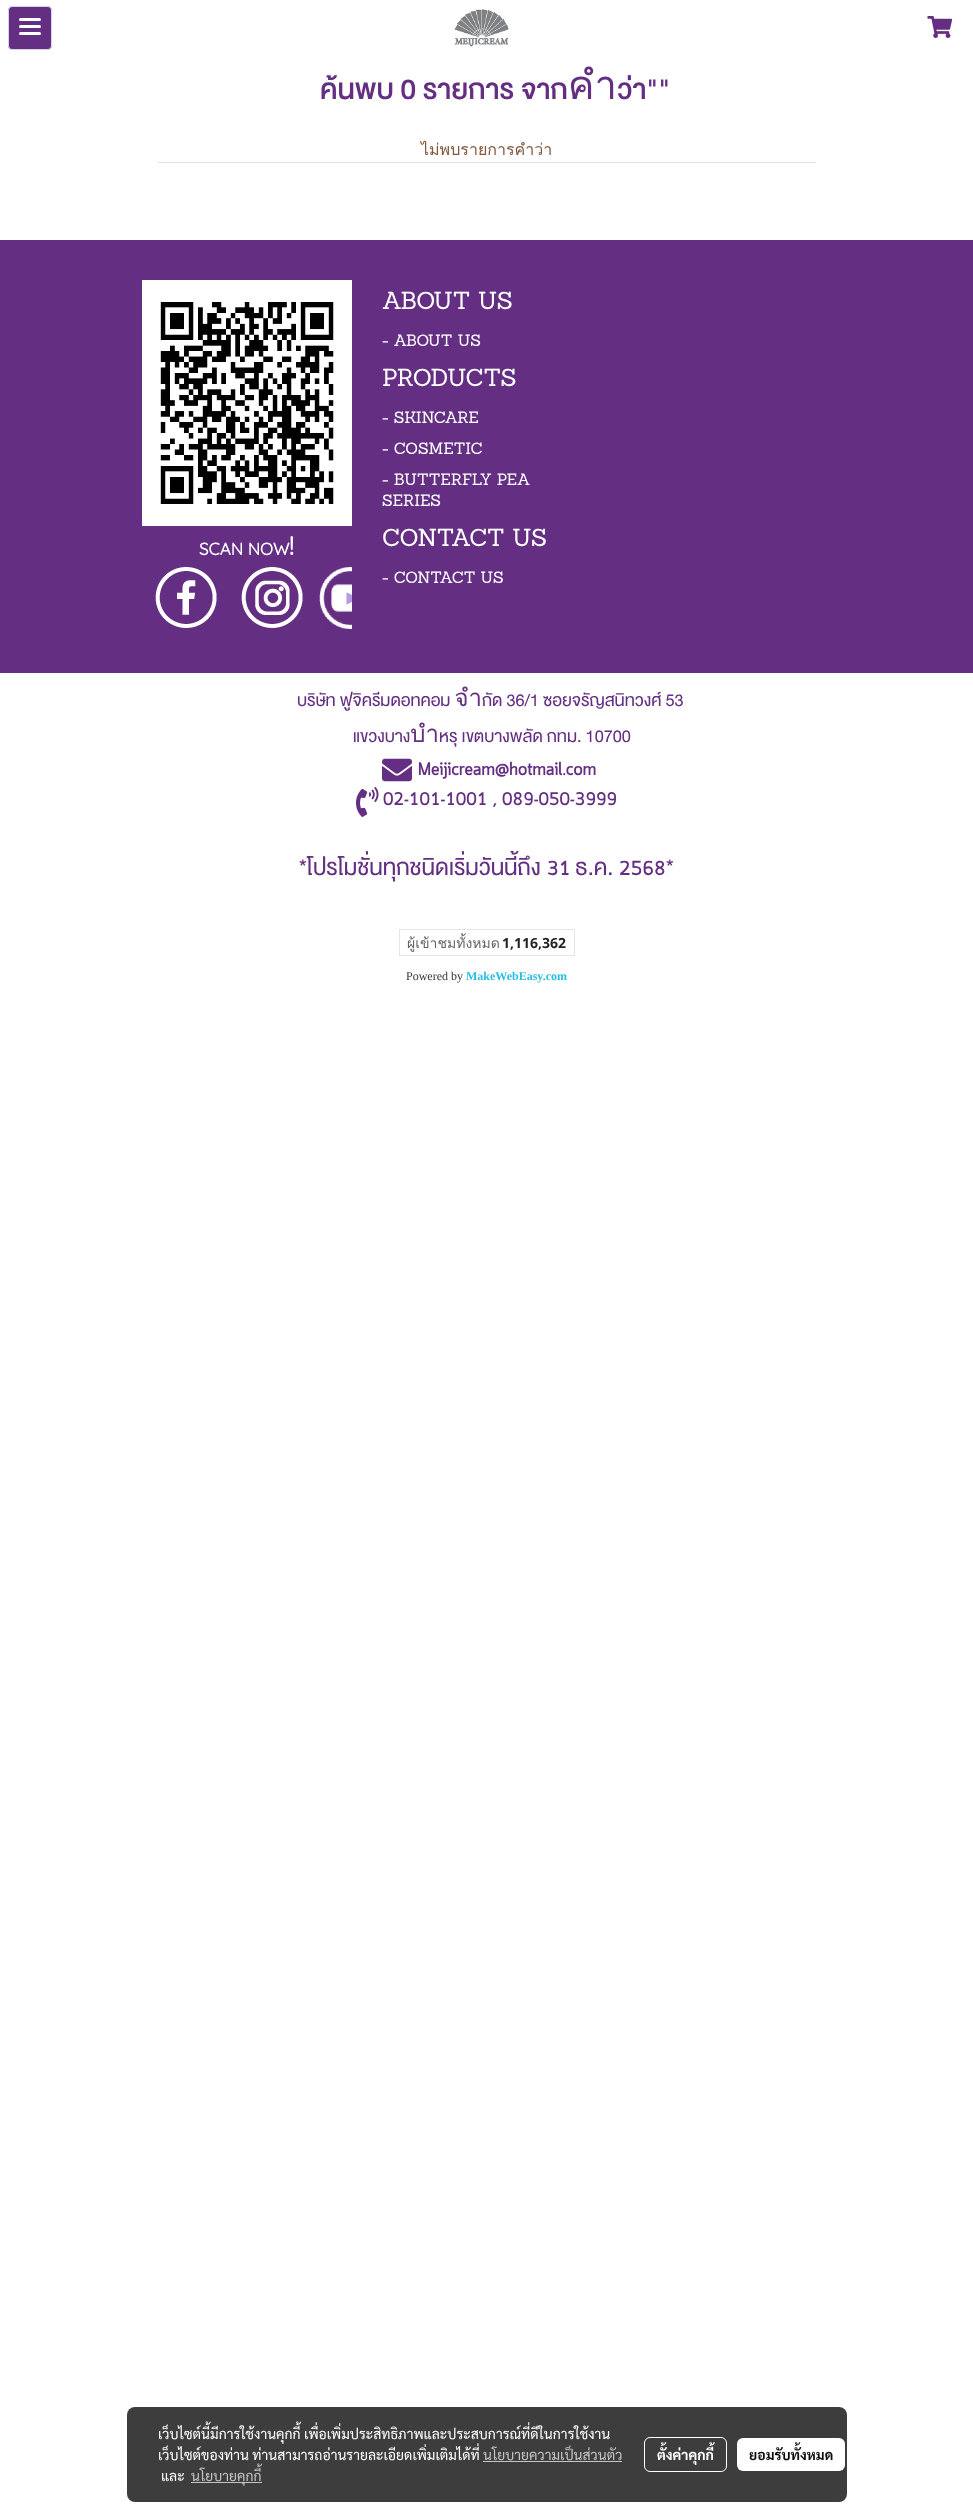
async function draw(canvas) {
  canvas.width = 973;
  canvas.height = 2510;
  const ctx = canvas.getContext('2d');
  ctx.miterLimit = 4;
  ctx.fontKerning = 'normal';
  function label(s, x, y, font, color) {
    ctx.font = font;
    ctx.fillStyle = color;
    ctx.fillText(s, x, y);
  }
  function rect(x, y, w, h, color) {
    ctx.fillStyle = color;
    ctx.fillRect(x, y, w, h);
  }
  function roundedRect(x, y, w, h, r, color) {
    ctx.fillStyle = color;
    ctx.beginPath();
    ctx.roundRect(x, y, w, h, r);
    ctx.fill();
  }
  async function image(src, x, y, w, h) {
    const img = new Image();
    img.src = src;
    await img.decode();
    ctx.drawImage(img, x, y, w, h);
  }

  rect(0, 0, 973, 2510, '#fff');
  ctx.fillStyle = '#642f82';
  ctx.beginPath();
  ctx.roundRect(8.5, 6.5, 43, 43, 3.5);
  ctx.fill();
  ctx.strokeStyle = '#d9d2e9';
  ctx.stroke();
  roundedRect(19, 25, 22, 3, 1.5, '#fff');
  roundedRect(19, 18, 22, 3, 1.5, '#fff');
  roundedRect(19, 32, 22, 3, 1.5, '#fff');
  await image('assets/img1.png', 454, 9, 55, 38);
  await image('assets/img2.png', 927, 16, 26, 22);
  label('ค้นพบ 0 รายการ จากคำว่า""', 320, 99, '500 40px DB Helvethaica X', '#642f82');
  rect(158, 162, 658, 1, '#dee2e6');
  label('ไม่พบรายการคำว่า', 421, 155, '16px Loma', '#85583c');
  rect(0, 240, 973, 433, '#642f82');
  await image('assets/img3.png', 142, 280, 210, 246);
  label('SCAN NOW', 199, 555, 'bold 17px Quicksand', '#fff');
  label('!', 289, 555, 'bold 26px Quicksand', '#fff');
  await image('assets/img4.png', 155, 567, 62, 61);
  await image('assets/img5.png', 241, 567, 62, 61);
  await image('assets/img6.png', 318, 567, 34, 62);
  label('ABOUT US', 382, 309, '24px Sanchez', '#fff');
  label('- ABOUT US', 382, 346, '16px Sanchez', '#fff');
  label('PRODUCTS', 382, 386, '24px Sanchez', '#fff');
  label('- SKINCARE', 382, 423, '16px Sanchez', '#fff');
  label('- COSMETIC', 382, 454, '16px Sanchez', '#fff');
  label('- BUTTERFLY PEA', 382, 485, '16px Sanchez', '#fff');
  label('SERIES', 382, 506, '16px Sanchez', '#fff');
  label('CONTACT US', 382, 546, '24px Sanchez', '#fff');
  label('- CONTACT US', 382, 583, '16px Sanchez', '#fff');
  label('บริษัท ฟูจิครีมดอทคอม จำกัด 36/1 ซอยจรัญสนิทวงศ์ 53', 297, 706, '24px DB Helvethaica X', '#642f82');
  label('แขวงบางบำหรุ เขตบางพลัด กทม. 10700', 353, 742, '24px DB Helvethaica X', '#642f82');
  await image('assets/img7.png', 382, 758, 30, 24);
  label('Meijicream@hotmail.com', 418, 775, 'bold 18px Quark', '#642f82');
  await image('assets/img8.png', 356, 787, 23, 30);
  label('02-101-1001 , 089-050-3999', 383, 805, 'bold 18px Quark', '#642f82');
  label('*โปรโมชั่นทุกชนิดเริ่มวันนี้ถึง', 299, 875, '32px DB Helvethaica X', '#642f82');
  label('31', 547, 875, 'bold 20px Quark', '#642f82');
  label('ธ.ค.', 575, 875, '32px DB Helvethaica X', '#642f82');
  label('2568', 619, 875, 'bold 20px Quark', '#642f82');
  label('*', 666, 875, '32px DB Helvethaica X', '#642f82');
  ctx.strokeStyle = '#e5e5e5';
  ctx.strokeRect(399.5, 929.5, 175, 26);
  label('ผู้เข้าชมทั้งหมด', 407, 948, '14px Loma', '#636363');
  label('1,116,362', 502, 948, 'bold 14px Open Sans', '#242424');
  label('Powered by', 406, 980, '12px Liberation Serif', '#353535');
  label('MakeWebEasy.com', 466, 980, 'bold 12px Liberation Serif', '#28bee3');
  roundedRect(127, 2407, 720, 95, 8, '#3d3d3d');
  label('เว็บไซต์นี้มีการใช้งานคุกกี้ เพื่อเพิ่มประสิทธิภาพและประสบการณ์ที่ดีในการใช้งาน', 158, 2439, '14px Sarabun', '#fff');
  label('เว็บไซต์ของท่าน ท่านสามารถอ่านรายละเอียดเพิ่มเติมได้ที่', 158, 2460, '14px Sarabun', '#fff');
  label('นโยบายความเป็นส่วนตัว', 483, 2460, '14px Sarabun', '#c5c5c5');
  rect(483, 2461, 139, 1, '#c5c5c5');
  label('และ', 161, 2481, '14px Sarabun', '#fff');
  rect(191, 2482, 71, 1, '#c5c5c5');
  label('นโยบายคุกกี้', 191, 2481, '14px Sarabun', '#c5c5c5');
  ctx.beginPath();
  ctx.roundRect(644.5, 2437.5, 82, 34, 5.5);
  ctx.strokeStyle = '#fff';
  ctx.stroke();
  label('ตั้งค่าคุกกี้', 657, 2460, 'bold 14px Sarabun', '#fff');
  roundedRect(737, 2438, 108, 33, 6, '#fff');
  label('ยอมรับทั้งหมด', 749, 2460, 'bold 14px Sarabun', '#0d0d0d');
}

draw(document.querySelector('canvas'));
